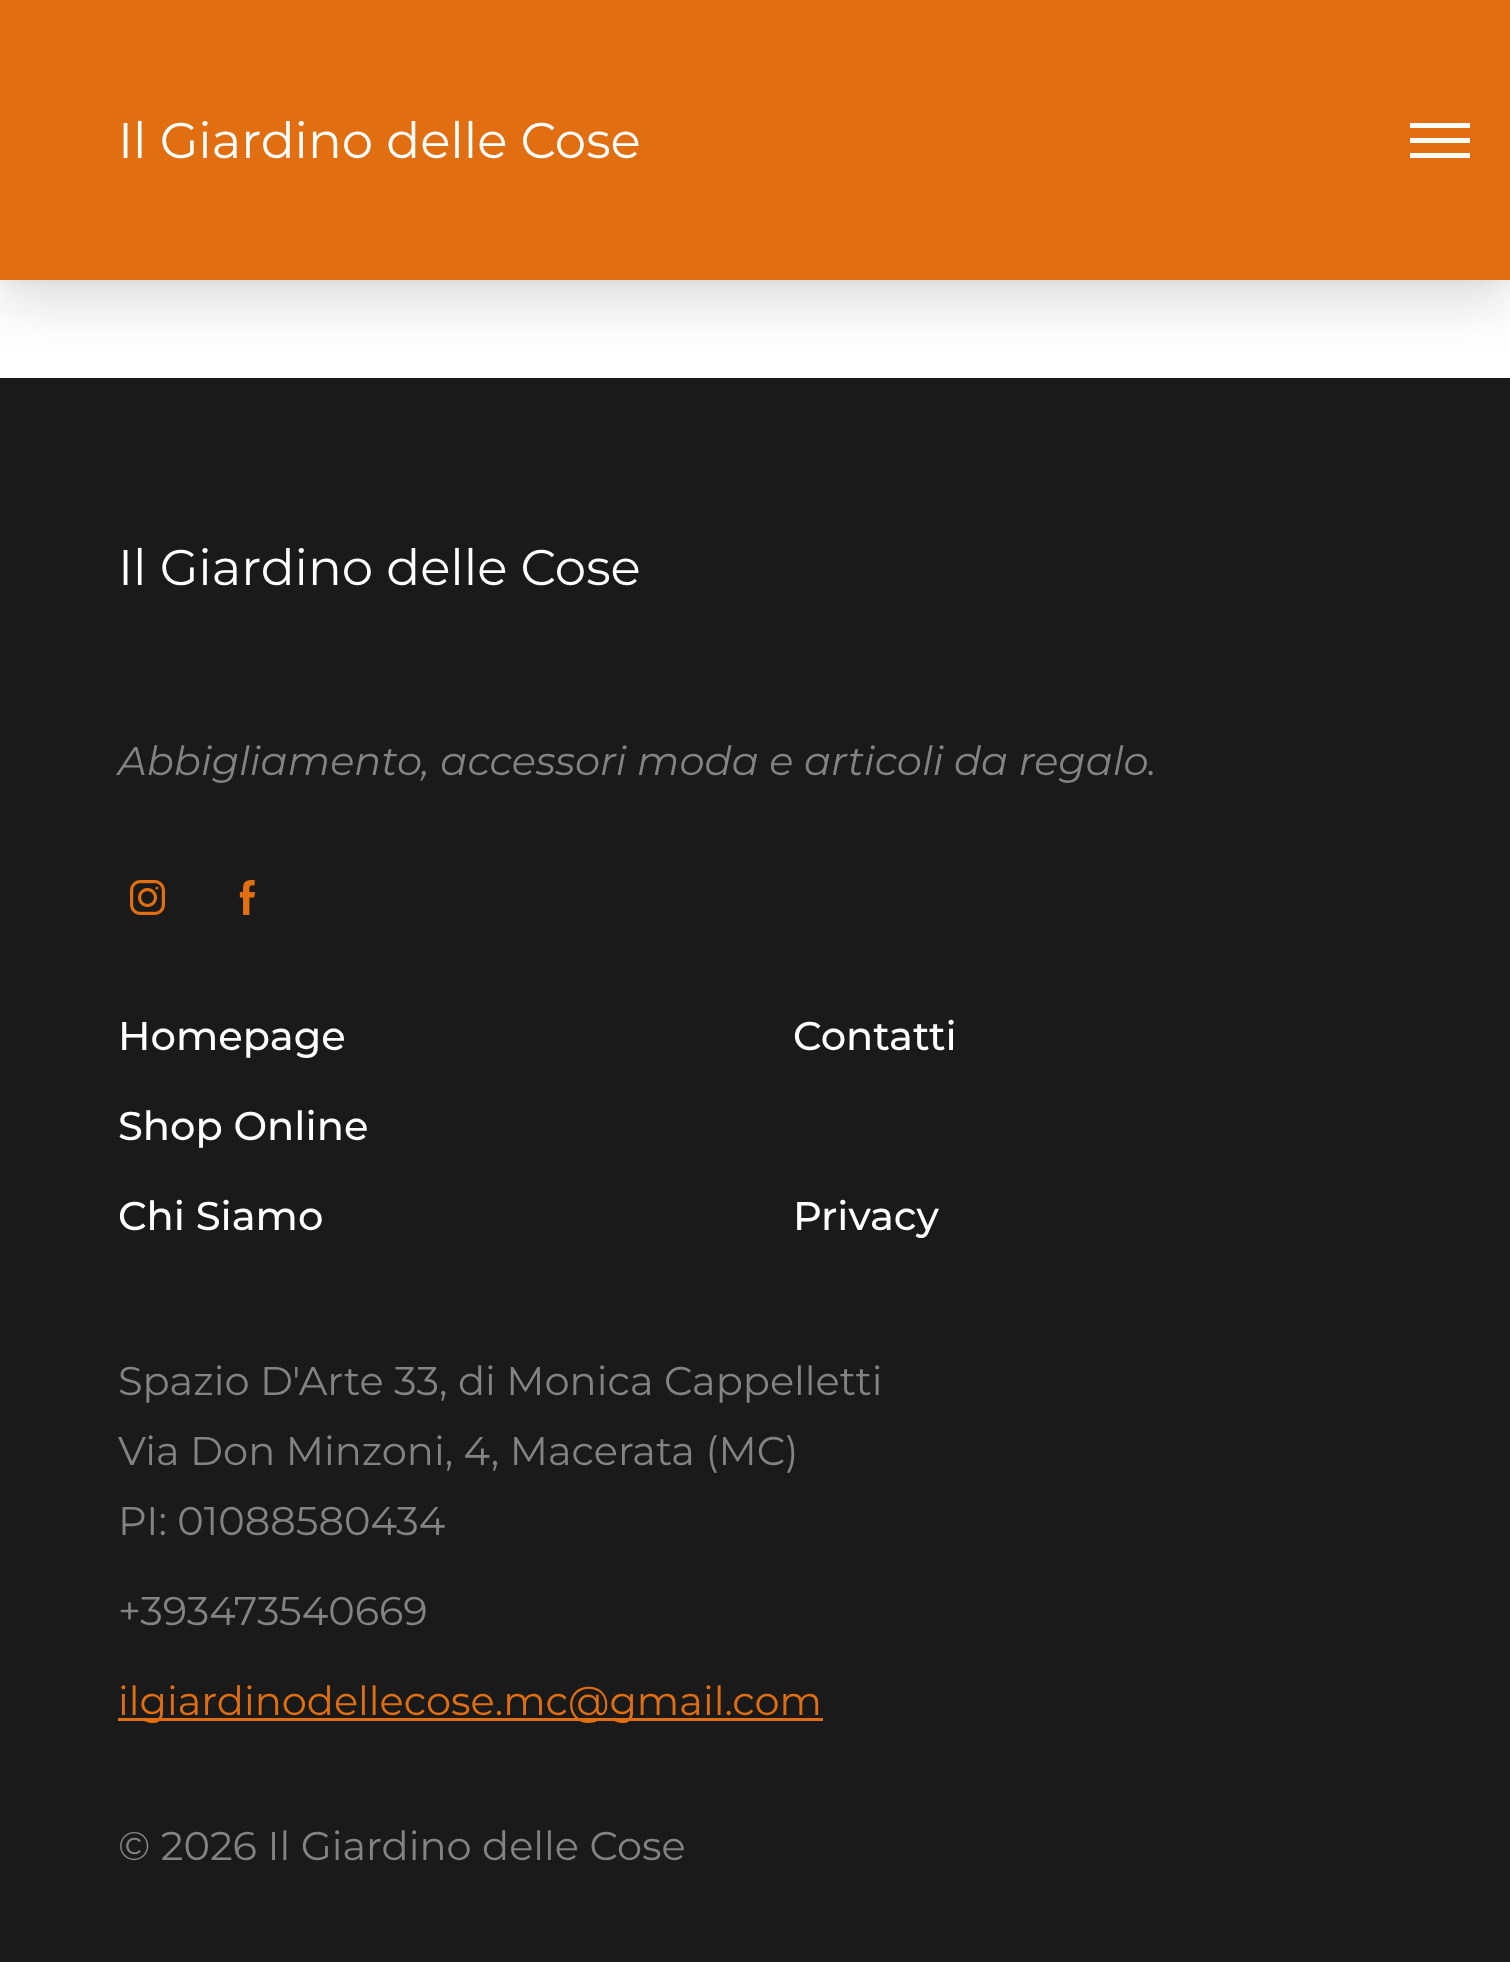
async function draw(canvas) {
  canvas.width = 1510;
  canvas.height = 1962;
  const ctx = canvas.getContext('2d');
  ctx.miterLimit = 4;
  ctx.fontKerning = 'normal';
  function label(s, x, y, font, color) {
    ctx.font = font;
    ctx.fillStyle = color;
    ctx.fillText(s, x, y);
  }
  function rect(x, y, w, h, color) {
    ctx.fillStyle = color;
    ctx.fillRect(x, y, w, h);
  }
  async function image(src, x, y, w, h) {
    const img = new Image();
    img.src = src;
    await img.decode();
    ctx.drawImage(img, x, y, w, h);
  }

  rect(0, 0, 1510, 1962, '#fff');
  ctx.fillStyle = '#0000000f';
  ctx.filter = 'blur(7.5px)';
  ctx.beginPath();
  ctx.rect(0, 0, 1510, 280);
  ctx.fill();
  ctx.filter = 'none';
  rect(0, 378, 1510, 1584, '#1a1a1a');
  ctx.fillStyle = '#0000001f';
  ctx.filter = 'blur(25px)';
  ctx.beginPath();
  ctx.rect(0, 25, 1510, 280);
  ctx.fill();
  ctx.filter = 'none';
  rect(0, 0, 1510, 280, '#e16f12');
  label('Il Giardino delle Cose', 118, 158, '50px Montserrat', '#fff');
  rect(1410, 138, 60, 5, '#fff');
  rect(1410, 123, 60, 5, '#fff');
  rect(1410, 153, 60, 5, '#fff');
  label('Il Giardino delle Cose', 118, 585, '50px Montserrat', '#fff');
  label('Abbigliamento, accessori moda e articoli da regalo.', 118, 775, 'italic 40px Montserrat', '#838383');
  await image('assets/img1.png', 130, 880, 35, 35);
  await image('assets/img2.png', 239, 880, 17, 35);
  label('Homepage', 118, 1050, '500 40px Montserrat', '#fff');
  label('Contatti', 793, 1050, '500 40px Montserrat', '#fff');
  label('Shop Online', 118, 1140, '500 40px Montserrat', '#fff');
  label('Chi Siamo', 118, 1230, '500 40px Montserrat', '#fff');
  label('Privacy', 793, 1230, '500 40px Montserrat', '#fff');
  label('Spazio D\'Arte 33, di Monica Cappelletti', 118, 1395, '40px Montserrat', '#838383');
  label('Via Don Minzoni, 4, Macerata (MC)', 118, 1465, '40px Montserrat', '#838383');
  label('PI: 01088580434', 118, 1535, '40px Montserrat', '#838383');
  label('+393473540669', 118, 1625, '40px Montserrat', '#838383');
  rect(118, 1718, 705, 3, '#e16f12');
  label('ilgiardinodellecose.mc@gmail.com', 118, 1715, '40px Montserrat', '#e16f12');
  label('© 2026 Il Giardino delle Cose', 118, 1860, '40px Montserrat', '#838383');
}

draw(document.querySelector('canvas'));
